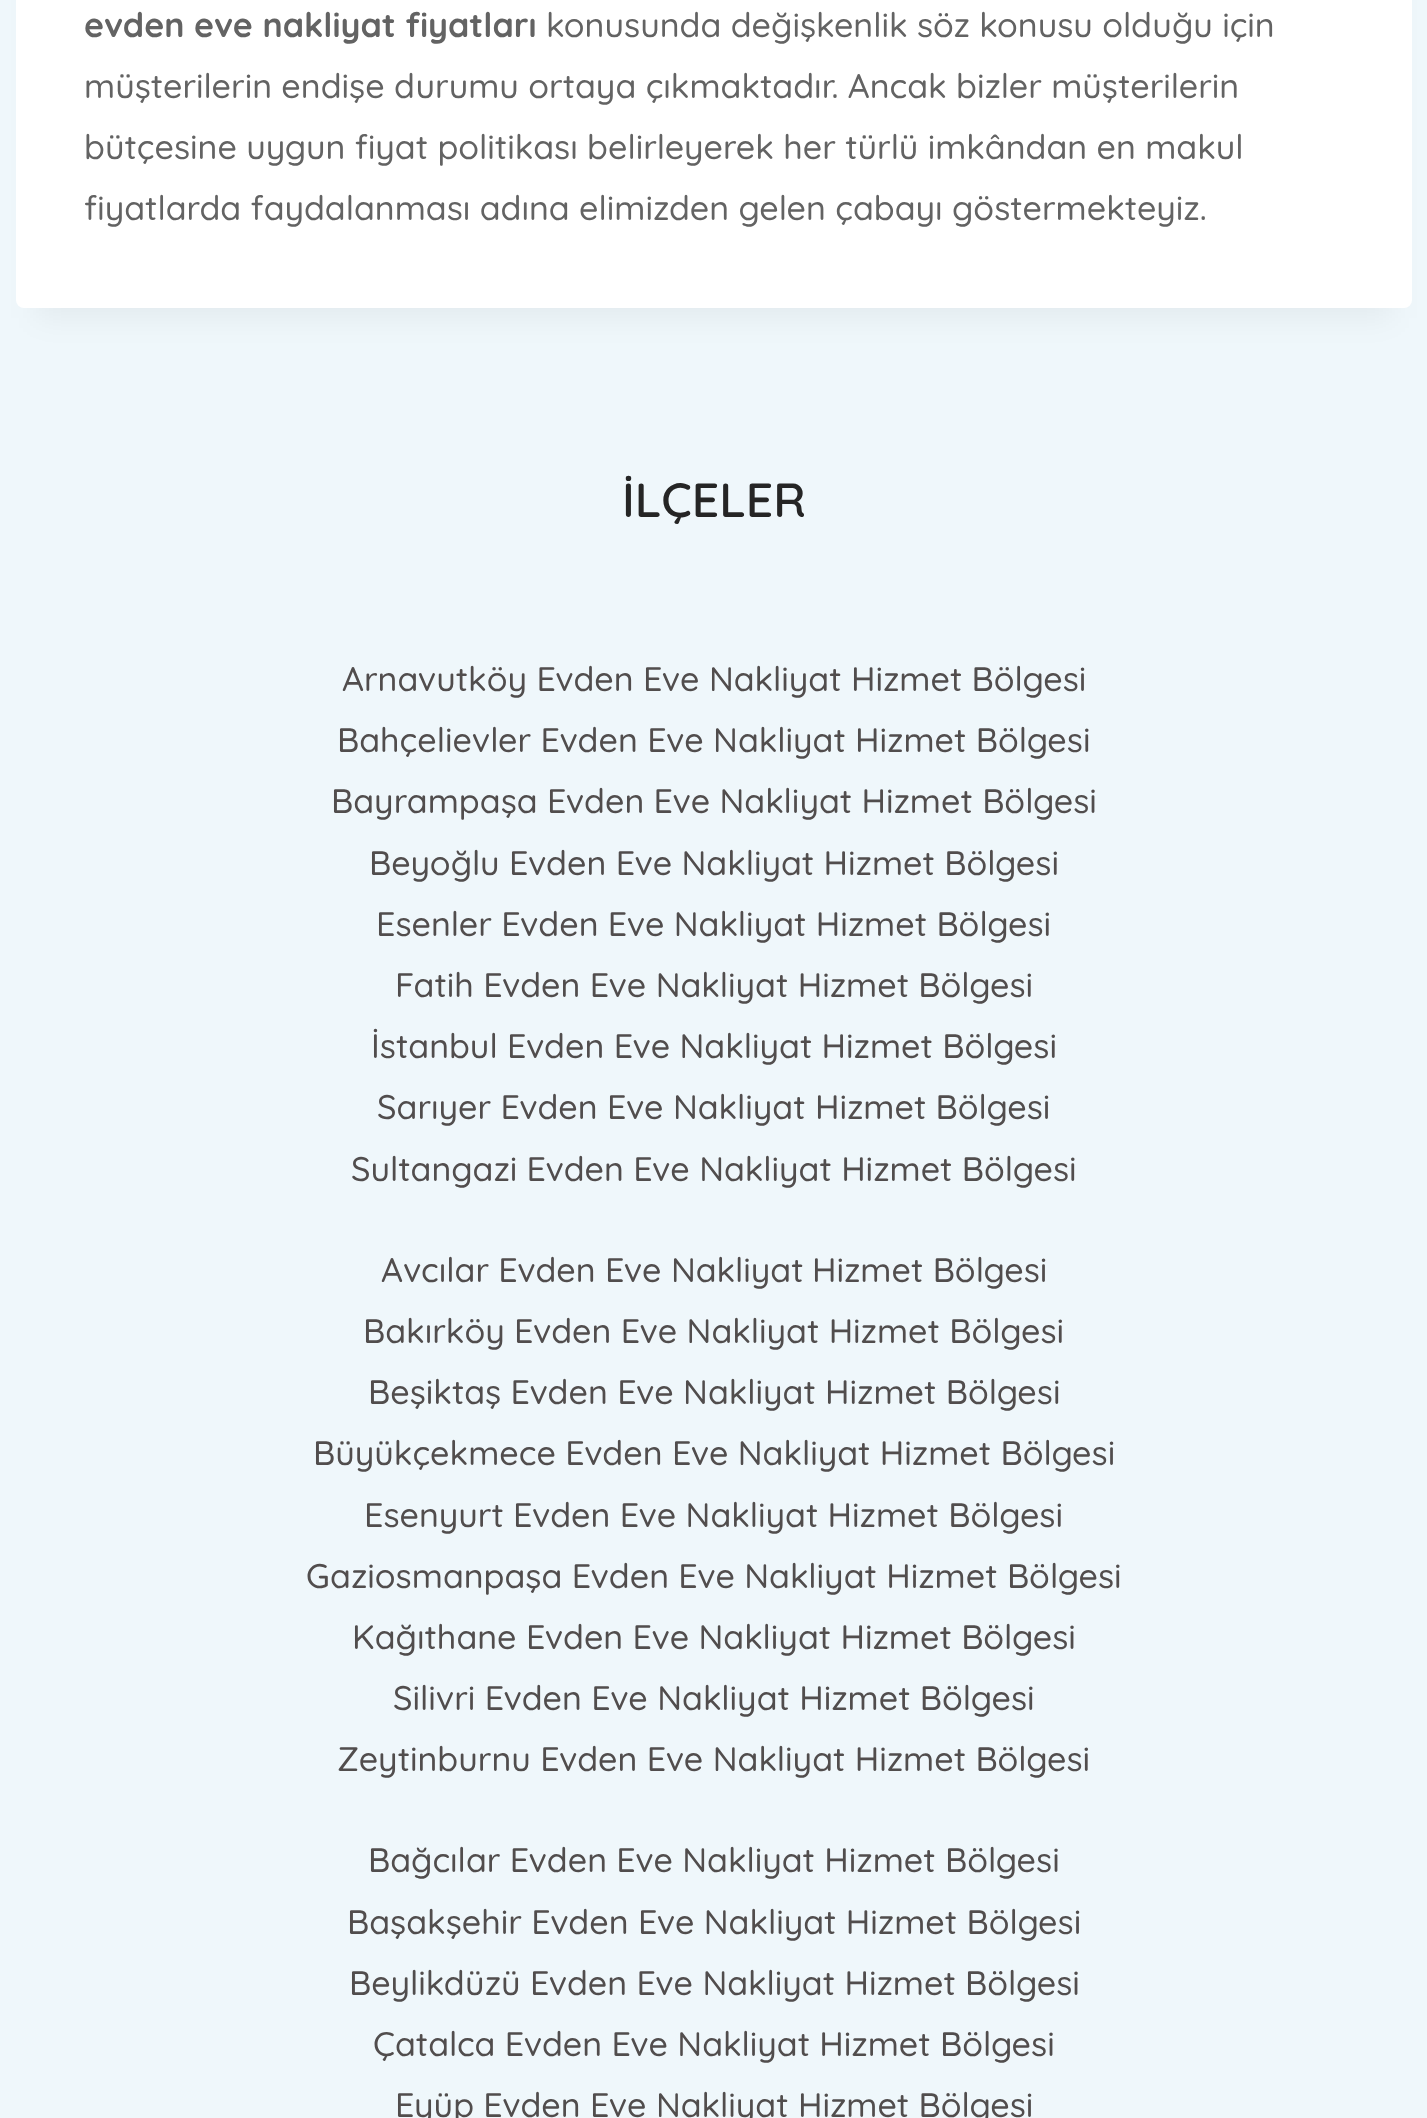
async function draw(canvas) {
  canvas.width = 1427;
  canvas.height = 2118;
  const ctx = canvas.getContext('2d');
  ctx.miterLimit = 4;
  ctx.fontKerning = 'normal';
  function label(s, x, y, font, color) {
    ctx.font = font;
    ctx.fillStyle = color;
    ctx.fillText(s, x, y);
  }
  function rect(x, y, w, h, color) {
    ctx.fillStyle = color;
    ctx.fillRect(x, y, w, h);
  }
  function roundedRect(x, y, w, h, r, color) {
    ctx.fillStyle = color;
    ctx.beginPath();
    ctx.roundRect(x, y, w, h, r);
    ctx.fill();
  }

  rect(0, 0, 1427, 2118, '#eff7fb');
  ctx.fillStyle = '#0000000d';
  ctx.filter = 'blur(15px)';
  ctx.beginPath();
  ctx.rect(36, -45, 1356, 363);
  ctx.fill();
  ctx.filter = 'none';
  roundedRect(16, -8, 1396, 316, 8, '#fff');
  label('evden eve nakliyat fiyatları', 84, 37, 'bold 34px Quicksand', '#636363');
  label('konusunda değişkenlik söz konusu olduğu için', 546, 37, '500 34px Quicksand', '#636363');
  label('müşterilerin endişe durumu ortaya çıkmaktadır. Ancak bizler müşterilerin', 84, 98, '500 34px Quicksand', '#636363');
  label('bütçesine uygun fiyat politikası belirleyerek her türlü imkândan en makul', 84, 159, '500 34px Quicksand', '#636363');
  label('fiyatlarda faydalanması adına elimizden gelen çabayı göstermekteyiz.', 84, 220, '500 34px Quicksand', '#636363');
  label('İLÇELER', 622, 517, '600 48px Quicksand', '#252525');
  label('Arnavutköy Evden Eve Nakliyat Hizmet Bölgesi', 342, 691, '500 34px Quicksand', '#514d4d');
  label('Bahçelievler Evden Eve Nakliyat Hizmet Bölgesi', 337, 752, '500 34px Quicksand', '#514d4d');
  label('Bayrampaşa Evden Eve Nakliyat Hizmet Bölgesi', 331, 813, '500 34px Quicksand', '#514d4d');
  label('Beyoğlu Evden Eve Nakliyat Hizmet Bölgesi', 369, 875, '500 34px Quicksand', '#514d4d');
  label('Esenler Evden Eve Nakliyat Hizmet Bölgesi', 376, 936, '500 34px Quicksand', '#514d4d');
  label('Fatih Evden Eve Nakliyat Hizmet Bölgesi', 395, 997, '500 34px Quicksand', '#514d4d');
  label('İstanbul Evden Eve Nakliyat Hizmet Bölgesi', 371, 1058, '500 34px Quicksand', '#514d4d');
  label('Sarıyer Evden Eve Nakliyat Hizmet Bölgesi', 377, 1119, '500 34px Quicksand', '#514d4d');
  label('Sultangazi Evden Eve Nakliyat Hizmet Bölgesi', 351, 1181, '500 34px Quicksand', '#514d4d');
  label('Avcılar Evden Eve Nakliyat', 381, 1282, '500 34px Quicksand', '#514d4d');
  label('Hizmet Bölgesi', 812, 1282, '500 34px Quicksand', '#514d4d');
  label('Bakırköy Evden Eve Nakliyat Hizmet Bölgesi', 363, 1343, '500 34px Quicksand', '#514d4d');
  label('Beşiktaş Evden Eve Nakliyat Hizmet Bölgesi', 368, 1404, '500 34px Quicksand', '#514d4d');
  label('Büyükçekmece Evden Eve Nakliyat Hizmet Bölgesi', 313, 1465, '500 34px Quicksand', '#514d4d');
  label('Esenyurt Evden Eve Nakliyat Hizmet Bölgesi', 364, 1527, '500 34px Quicksand', '#514d4d');
  label('Gaziosmanpaşa Evden Eve Nakliyat Hizmet Bölgesi', 306, 1588, '500 34px Quicksand', '#514d4d');
  label('Kağıthane Evden Eve Nakliyat Hizmet Bölgesi', 352, 1649, '500 34px Quicksand', '#514d4d');
  label('Silivri Evden Eve Nakliyat Hizmet Bölgesi', 393, 1710, '500 34px Quicksand', '#514d4d');
  label('Zeytinburnu Evden Eve Nakliyat Hizmet Bölgesi', 337, 1771, '500 34px Quicksand', '#514d4d');
  label('Bağcılar Evden Eve Nakliyat Hizmet Bölgesi', 368, 1872, '500 34px Quicksand', '#514d4d');
  label('Başakşehir Evden Eve Nakliyat Hizmet Bölgesi', 347, 1934, '500 34px Quicksand', '#514d4d');
  label('Beylikdüzü Evden Eve Nakliyat Hizmet Bölgesi', 349, 1995, '500 34px Quicksand', '#514d4d');
  label('Çatalca Evden Eve Nakliyat Hizmet Bölgesi', 373, 2056, '500 34px Quicksand', '#514d4d');
  label('Eyüp Evden Eve Nakliyat Hizmet Bölgesi', 395, 2117, '500 34px Quicksand', '#514d4d');
}

draw(document.querySelector('canvas'));
